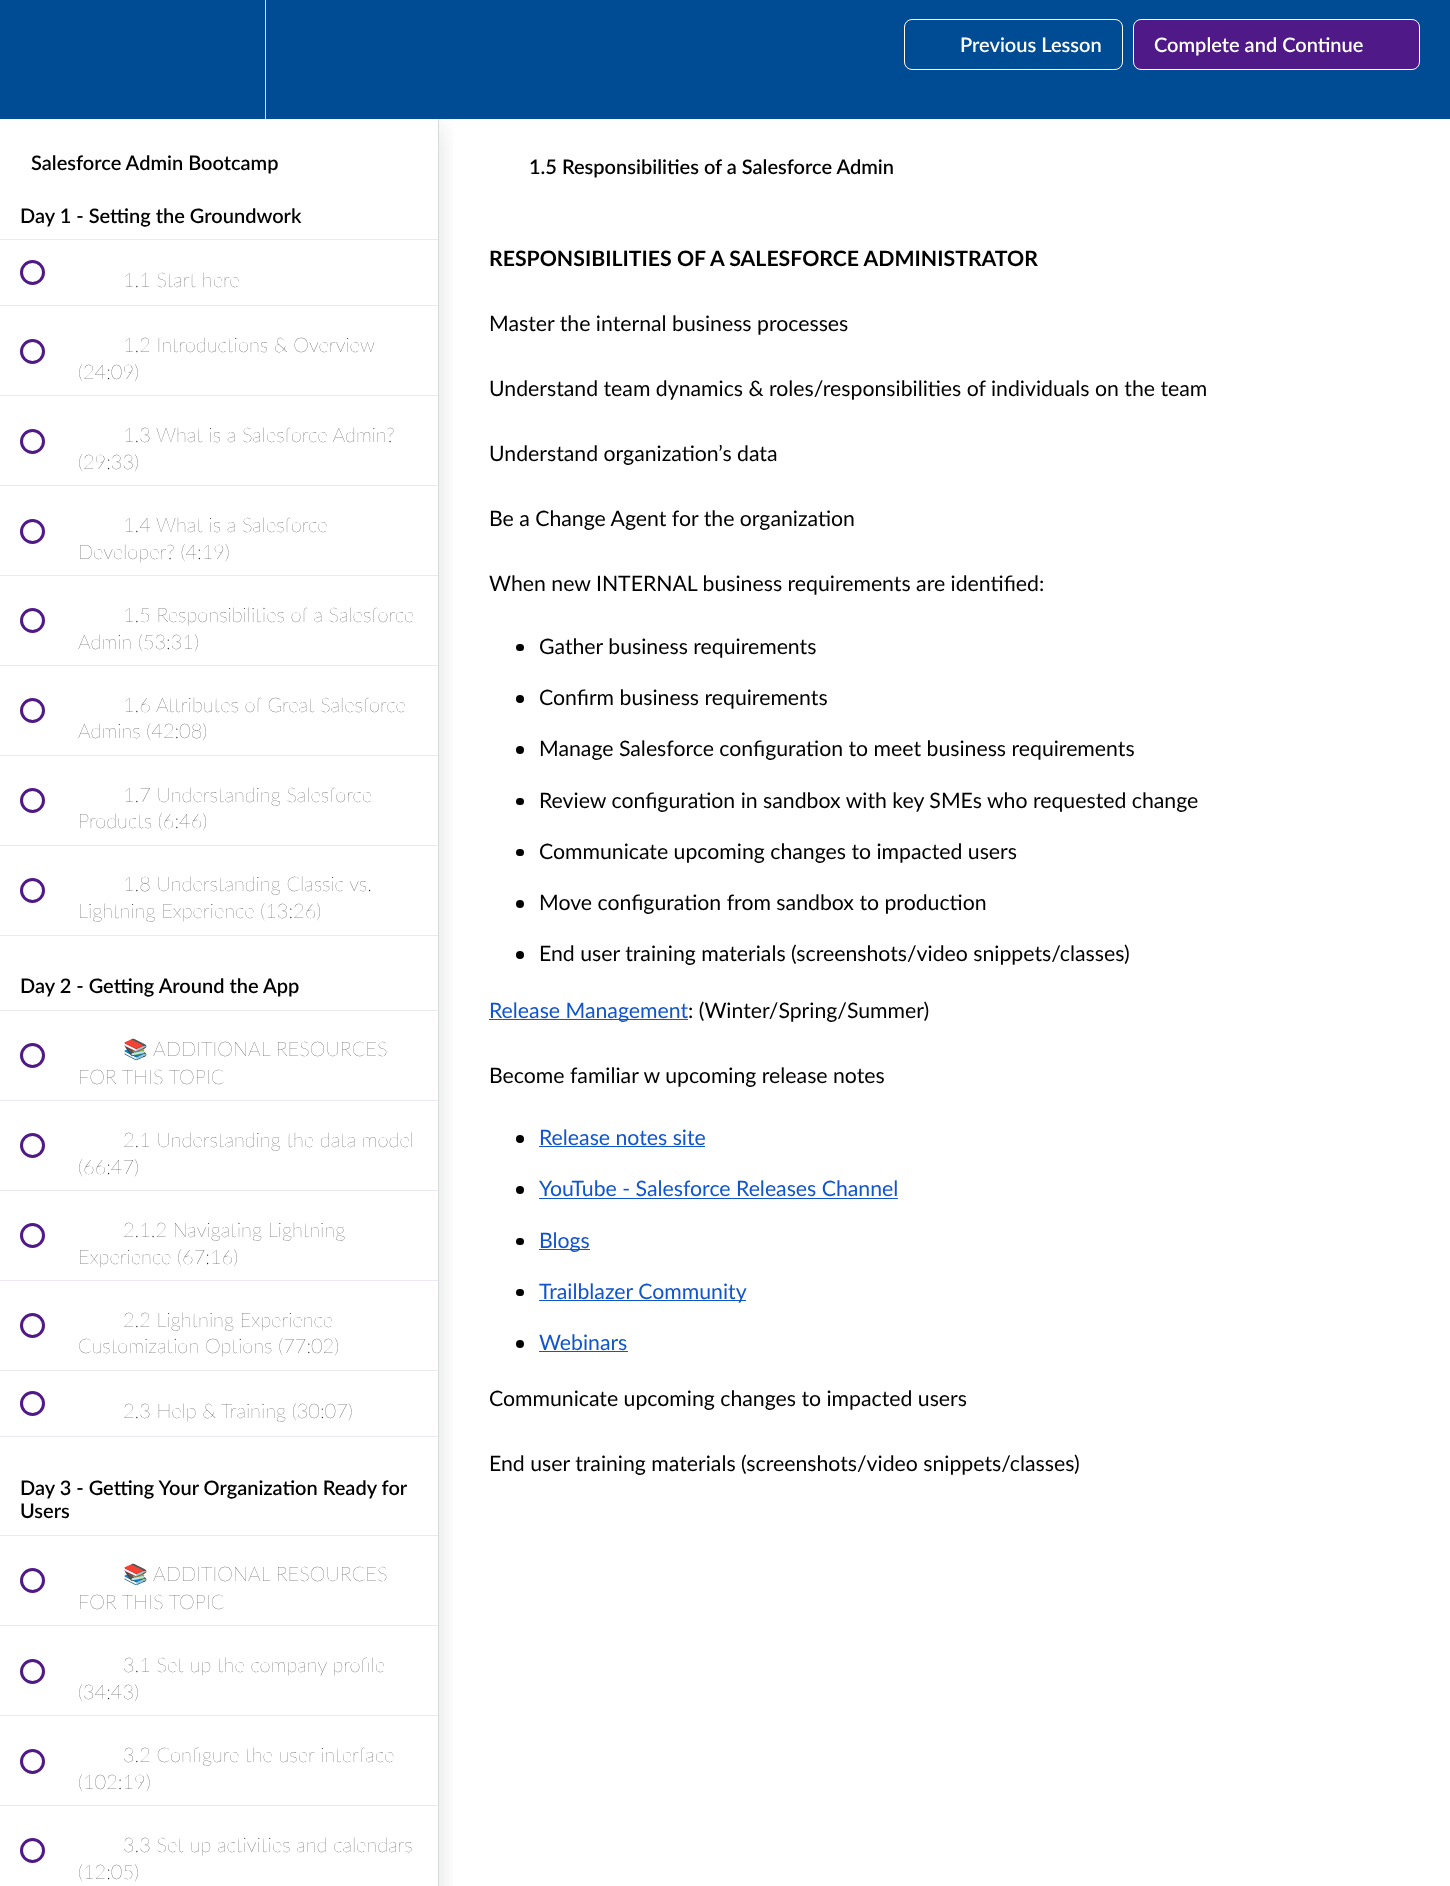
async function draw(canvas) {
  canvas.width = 1450;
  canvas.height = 1886;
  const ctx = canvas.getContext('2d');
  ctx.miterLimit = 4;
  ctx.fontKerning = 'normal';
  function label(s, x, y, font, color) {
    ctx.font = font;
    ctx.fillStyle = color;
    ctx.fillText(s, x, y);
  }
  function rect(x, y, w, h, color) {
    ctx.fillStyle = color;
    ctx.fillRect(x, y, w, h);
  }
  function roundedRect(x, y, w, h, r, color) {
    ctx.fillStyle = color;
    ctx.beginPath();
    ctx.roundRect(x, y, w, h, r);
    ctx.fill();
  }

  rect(0, 0, 1450, 1886, '#fff');
  ctx.save();
  ctx.beginPath();
  ctx.rect(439, 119, 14, 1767);
  ctx.clip();
  ctx.fillStyle = '#20272d26';
  ctx.filter = 'blur(12.5px)';
  ctx.beginPath();
  ctx.rect(0, 126, 439, 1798);
  ctx.fill();
  ctx.filter = 'none';
  ctx.restore();
  rect(0, 0, 1450, 119, '#004c94');
  rect(265, 0, 1, 119, '#d7dadb');
  ctx.beginPath();
  ctx.roundRect(904.5, 19.5, 218, 50, 7.5);
  ctx.strokeStyle = '#fff';
  ctx.stroke();
  label('Previous Lesson', 960, 52, '600 20px Lato', '#fff');
  ctx.fillStyle = '#4f1a87';
  ctx.beginPath();
  ctx.roundRect(1133.5, 19.5, 286, 50, 7.5);
  ctx.fill();
  ctx.stroke();
  label('Complete and Continue', 1154, 52, '600 20px Lato', '#fff');
  rect(438, 119, 1, 1767, '#d7dadb');
  label('Salesforce Admin Bootcamp', 31, 170, '600 20px Lato', '#000');
  rect(0, 239, 438, 1, '#ede8f3');
  label('Day 1 - Setting the Groundwork', 20, 223, '600 20px Lato', '#000');
  rect(0, 305, 438, 1, '#ede8f3');
  ctx.beginPath();
  ctx.arc(32.5, 272.5, 11, 0, 2 * Math.PI);
  ctx.strokeStyle = '#4f1a87';
  ctx.lineWidth = 3;
  ctx.stroke();
  label('1.1 Start here', 123, 287, '200 20px Lato', '#1a1a1a');
  rect(0, 395, 438, 1, '#ede8f3');
  ctx.beginPath();
  ctx.arc(32.5, 351.5, 11, 0, 2 * Math.PI);
  ctx.stroke();
  label('1.2 Introductions & Overview', 123, 352, '200 20px Lato', '#1a1a1a');
  label('(24:09)', 78, 379, '200 20px Lato', '#1a1a1a');
  rect(0, 485, 438, 1, '#ede8f3');
  ctx.beginPath();
  ctx.arc(32.5, 441.5, 11, 0, 2 * Math.PI);
  ctx.stroke();
  label('1.3 What is a Salesforce Admin?', 123, 442, '200 20px Lato', '#1a1a1a');
  label('(29:33)', 78, 469, '200 20px Lato', '#1a1a1a');
  rect(0, 575, 438, 1, '#ede8f3');
  ctx.beginPath();
  ctx.arc(32.5, 531.5, 11, 0, 2 * Math.PI);
  ctx.stroke();
  label('1.4 What is a Salesforce', 123, 532, '200 20px Lato', '#1a1a1a');
  label('Developer? (4:19)', 78, 559, '200 20px Lato', '#1a1a1a');
  rect(0, 665, 438, 1, '#ede8f3');
  ctx.beginPath();
  ctx.arc(32.5, 620.5, 11, 0, 2 * Math.PI);
  ctx.stroke();
  label('1.5 Responsibilities of a Salesforce', 123, 622, '200 20px Lato', '#1a1a1a');
  label('Admin (53:31)', 78, 649, '200 20px Lato', '#1a1a1a');
  rect(0, 755, 438, 1, '#ede8f3');
  ctx.beginPath();
  ctx.arc(32.5, 710.5, 11, 0, 2 * Math.PI);
  ctx.stroke();
  label('1.6 Attributes of Great Salesforce', 123, 712, '200 20px Lato', '#1a1a1a');
  label('Admins (42:08)', 78, 738, '200 20px Lato', '#1a1a1a');
  rect(0, 845, 438, 1, '#ede8f3');
  ctx.beginPath();
  ctx.arc(32.5, 800.5, 11, 0, 2 * Math.PI);
  ctx.stroke();
  label('1.7 Understanding Salesforce', 123, 802, '200 20px Lato', '#1a1a1a');
  label('Products (6:46)', 78, 828, '200 20px Lato', '#1a1a1a');
  rect(0, 935, 438, 1, '#ede8f3');
  ctx.beginPath();
  ctx.arc(32.5, 890.5, 11, 0, 2 * Math.PI);
  ctx.stroke();
  label('1.8 Understanding Classic vs.', 123, 891, '200 20px Lato', '#1a1a1a');
  label('Lightning Experience (13:26)', 78, 918, '200 20px Lato', '#1a1a1a');
  rect(0, 1010, 438, 1, '#ede8f3');
  label('Day 2 - Getting Around the App', 20, 993, '600 20px Lato', '#000');
  rect(0, 1100, 438, 1, '#ede8f3');
  ctx.beginPath();
  ctx.arc(32.5, 1055.5, 11, 0, 2 * Math.PI);
  ctx.stroke();
  label('📚', 123, 1056, '20px Noto Color Emoji', '#1a1a1a');
  label('ADDITIONAL RESOURCES', 153, 1056, '200 20px Lato', '#1a1a1a');
  label('FOR THIS TOPIC', 78, 1084, '200 20px Lato', '#1a1a1a');
  rect(0, 1190, 438, 1, '#ede8f3');
  ctx.beginPath();
  ctx.arc(32.5, 1145.5, 11, 0, 2 * Math.PI);
  ctx.stroke();
  label('2.1 Understanding the data model', 123, 1147, '200 20px Lato', '#1a1a1a');
  label('(66:47)', 78, 1174, '200 20px Lato', '#1a1a1a');
  rect(0, 1280, 438, 1, '#ede8f3');
  ctx.beginPath();
  ctx.arc(32.5, 1235.5, 11, 0, 2 * Math.PI);
  ctx.stroke();
  label('2.1.2 Navigating Lightning', 123, 1237, '200 20px Lato', '#1a1a1a');
  label('Experience (67:16)', 78, 1264, '200 20px Lato', '#1a1a1a');
  rect(0, 1370, 438, 1, '#ede8f3');
  ctx.beginPath();
  ctx.arc(32.5, 1325.5, 11, 0, 2 * Math.PI);
  ctx.stroke();
  label('2.2 Lightning Experience', 123, 1327, '200 20px Lato', '#1a1a1a');
  label('Customization Options (77:02)', 78, 1353, '200 20px Lato', '#1a1a1a');
  rect(0, 1436, 438, 1, '#ede8f3');
  ctx.beginPath();
  ctx.arc(32.5, 1403.5, 11, 0, 2 * Math.PI);
  ctx.stroke();
  label('2.3 Help & Training (30:07)', 123, 1418, '200 20px Lato', '#1a1a1a');
  rect(0, 1535, 438, 1, '#ede8f3');
  label('Day 3 - Getting Your Organization Ready for', 20, 1495, '600 20px Lato', '#000');
  label('Users', 20, 1518, '600 20px Lato', '#000');
  rect(0, 1625, 438, 1, '#ede8f3');
  ctx.beginPath();
  ctx.arc(32.5, 1580.5, 11, 0, 2 * Math.PI);
  ctx.stroke();
  label('📚', 123, 1581, '20px Noto Color Emoji', '#1a1a1a');
  label('ADDITIONAL RESOURCES', 153, 1581, '200 20px Lato', '#1a1a1a');
  label('FOR THIS TOPIC', 78, 1609, '200 20px Lato', '#1a1a1a');
  rect(0, 1715, 438, 1, '#ede8f3');
  ctx.beginPath();
  ctx.arc(32.5, 1671.5, 11, 0, 2 * Math.PI);
  ctx.stroke();
  label('3.1 Set up the company profile', 123, 1672, '200 20px Lato', '#1a1a1a');
  label('(34:43)', 78, 1699, '200 20px Lato', '#1a1a1a');
  rect(0, 1805, 438, 1, '#ede8f3');
  ctx.beginPath();
  ctx.arc(32.5, 1761.5, 11, 0, 2 * Math.PI);
  ctx.stroke();
  label('3.2 Configure the user interface', 123, 1762, '200 20px Lato', '#1a1a1a');
  label('(102:19)', 78, 1789, '200 20px Lato', '#1a1a1a');
  ctx.beginPath();
  ctx.arc(32.5, 1850.5, 11, 0, 2 * Math.PI);
  ctx.stroke();
  label('3.3 Set up activities and calendars', 123, 1852, '200 20px Lato', '#1a1a1a');
  label('(12:05)', 78, 1879, '200 20px Lato', '#1a1a1a');
  label('1.5 Responsibilities of a Salesforce Admin', 529, 174, '600 20px Lato', '#000');
  label('RESPONSIBILITIES OF A SALESFORCE ADMINISTRATOR', 489, 266, 'bold 21.25px Lato', '#000');
  label('Master the internal business processes', 489, 331, '21.25px Lato', '#000');
  label('Understand team dynamics & roles/responsibilities of individuals on the team', 489, 396, '21.25px Lato', '#000');
  label('Understand organization’s data', 489, 461, '21.25px Lato', '#000');
  label('Be a Change Agent for the organization', 489, 526, '21.25px Lato', '#000');
  label('When new INTERNAL business requirements are identified:', 489, 591, '21.25px Lato', '#000');
  roundedRect(516, 644, 8, 7, 3.5, '#000');
  label('Gather business requirements', 539, 654, '21.25px Lato', '#000');
  ctx.beginPath();
  ctx.arc(520, 699, 4, 0, 2 * Math.PI);
  ctx.fill();
  label('Confirm business requirements', 539, 705, '21.25px Lato', '#000');
  ctx.beginPath();
  ctx.arc(520, 750, 4, 0, 2 * Math.PI);
  ctx.fill();
  label('Manage Salesforce configuration to meet business requirements', 539, 756, '21.25px Lato', '#000');
  roundedRect(516, 798, 8, 7, 3.5, '#000');
  label('Review configuration in sandbox with key SMEs who requested change', 539, 808, '21.25px Lato', '#000');
  roundedRect(516, 849, 8, 7, 3.5, '#000');
  label('Communicate upcoming changes to impacted users', 539, 859, '21.25px Lato', '#000');
  ctx.beginPath();
  ctx.arc(520, 904, 4, 0, 2 * Math.PI);
  ctx.fill();
  label('Move configuration from sandbox to production', 539, 910, '21.25px Lato', '#000');
  ctx.beginPath();
  ctx.arc(520, 955, 4, 0, 2 * Math.PI);
  ctx.fill();
  label('End user training materials (screenshots/video snippets/classes)', 539, 961, '21.25px Lato', '#000');
  rect(489, 1019, 199, 1, '#15c');
  label('Release Management', 489, 1018, '21.25px Lato', '#15c');
  label(': (Winter/Spring/Summer)', 688, 1018, '21.25px Lato', '#000');
  label('Become familiar w upcoming release notes', 489, 1083, '21.25px Lato', '#000');
  ctx.beginPath();
  ctx.arc(520, 1139, 4, 0, 2 * Math.PI);
  ctx.fill();
  label('Release notes site', 539, 1145, '21.25px Lato', '#15c');
  rect(539, 1146, 166, 1, '#15c');
  ctx.fillStyle = '#000';
  ctx.beginPath();
  ctx.arc(520, 1190, 4, 0, 2 * Math.PI);
  ctx.fill();
  label('YouTube - Salesforce Releases Channel', 539, 1196, '21.25px Lato', '#15c');
  rect(539, 1198, 359, 1, '#15c');
  roundedRect(516, 1238, 8, 7, 3.5, '#000');
  rect(539, 1249, 51, 1, '#15c');
  label('Blogs', 539, 1248, '21.25px Lato', '#15c');
  roundedRect(516, 1289, 8, 7, 3.5, '#000');
  rect(539, 1300, 207, 1, '#15c');
  label('Trailblazer Community', 539, 1299, '21.25px Lato', '#15c');
  ctx.fillStyle = '#000';
  ctx.beginPath();
  ctx.arc(520, 1344, 4, 0, 2 * Math.PI);
  ctx.fill();
  label('Webinars', 539, 1350, '21.25px Lato', '#15c');
  rect(539, 1351, 89, 1, '#15c');
  label('Communicate upcoming changes to impacted users', 489, 1406, '21.25px Lato', '#000');
  label('End user training materials (screenshots/video snippets/classes)', 489, 1471, '21.25px Lato', '#000');
}

draw(document.querySelector('canvas'));
